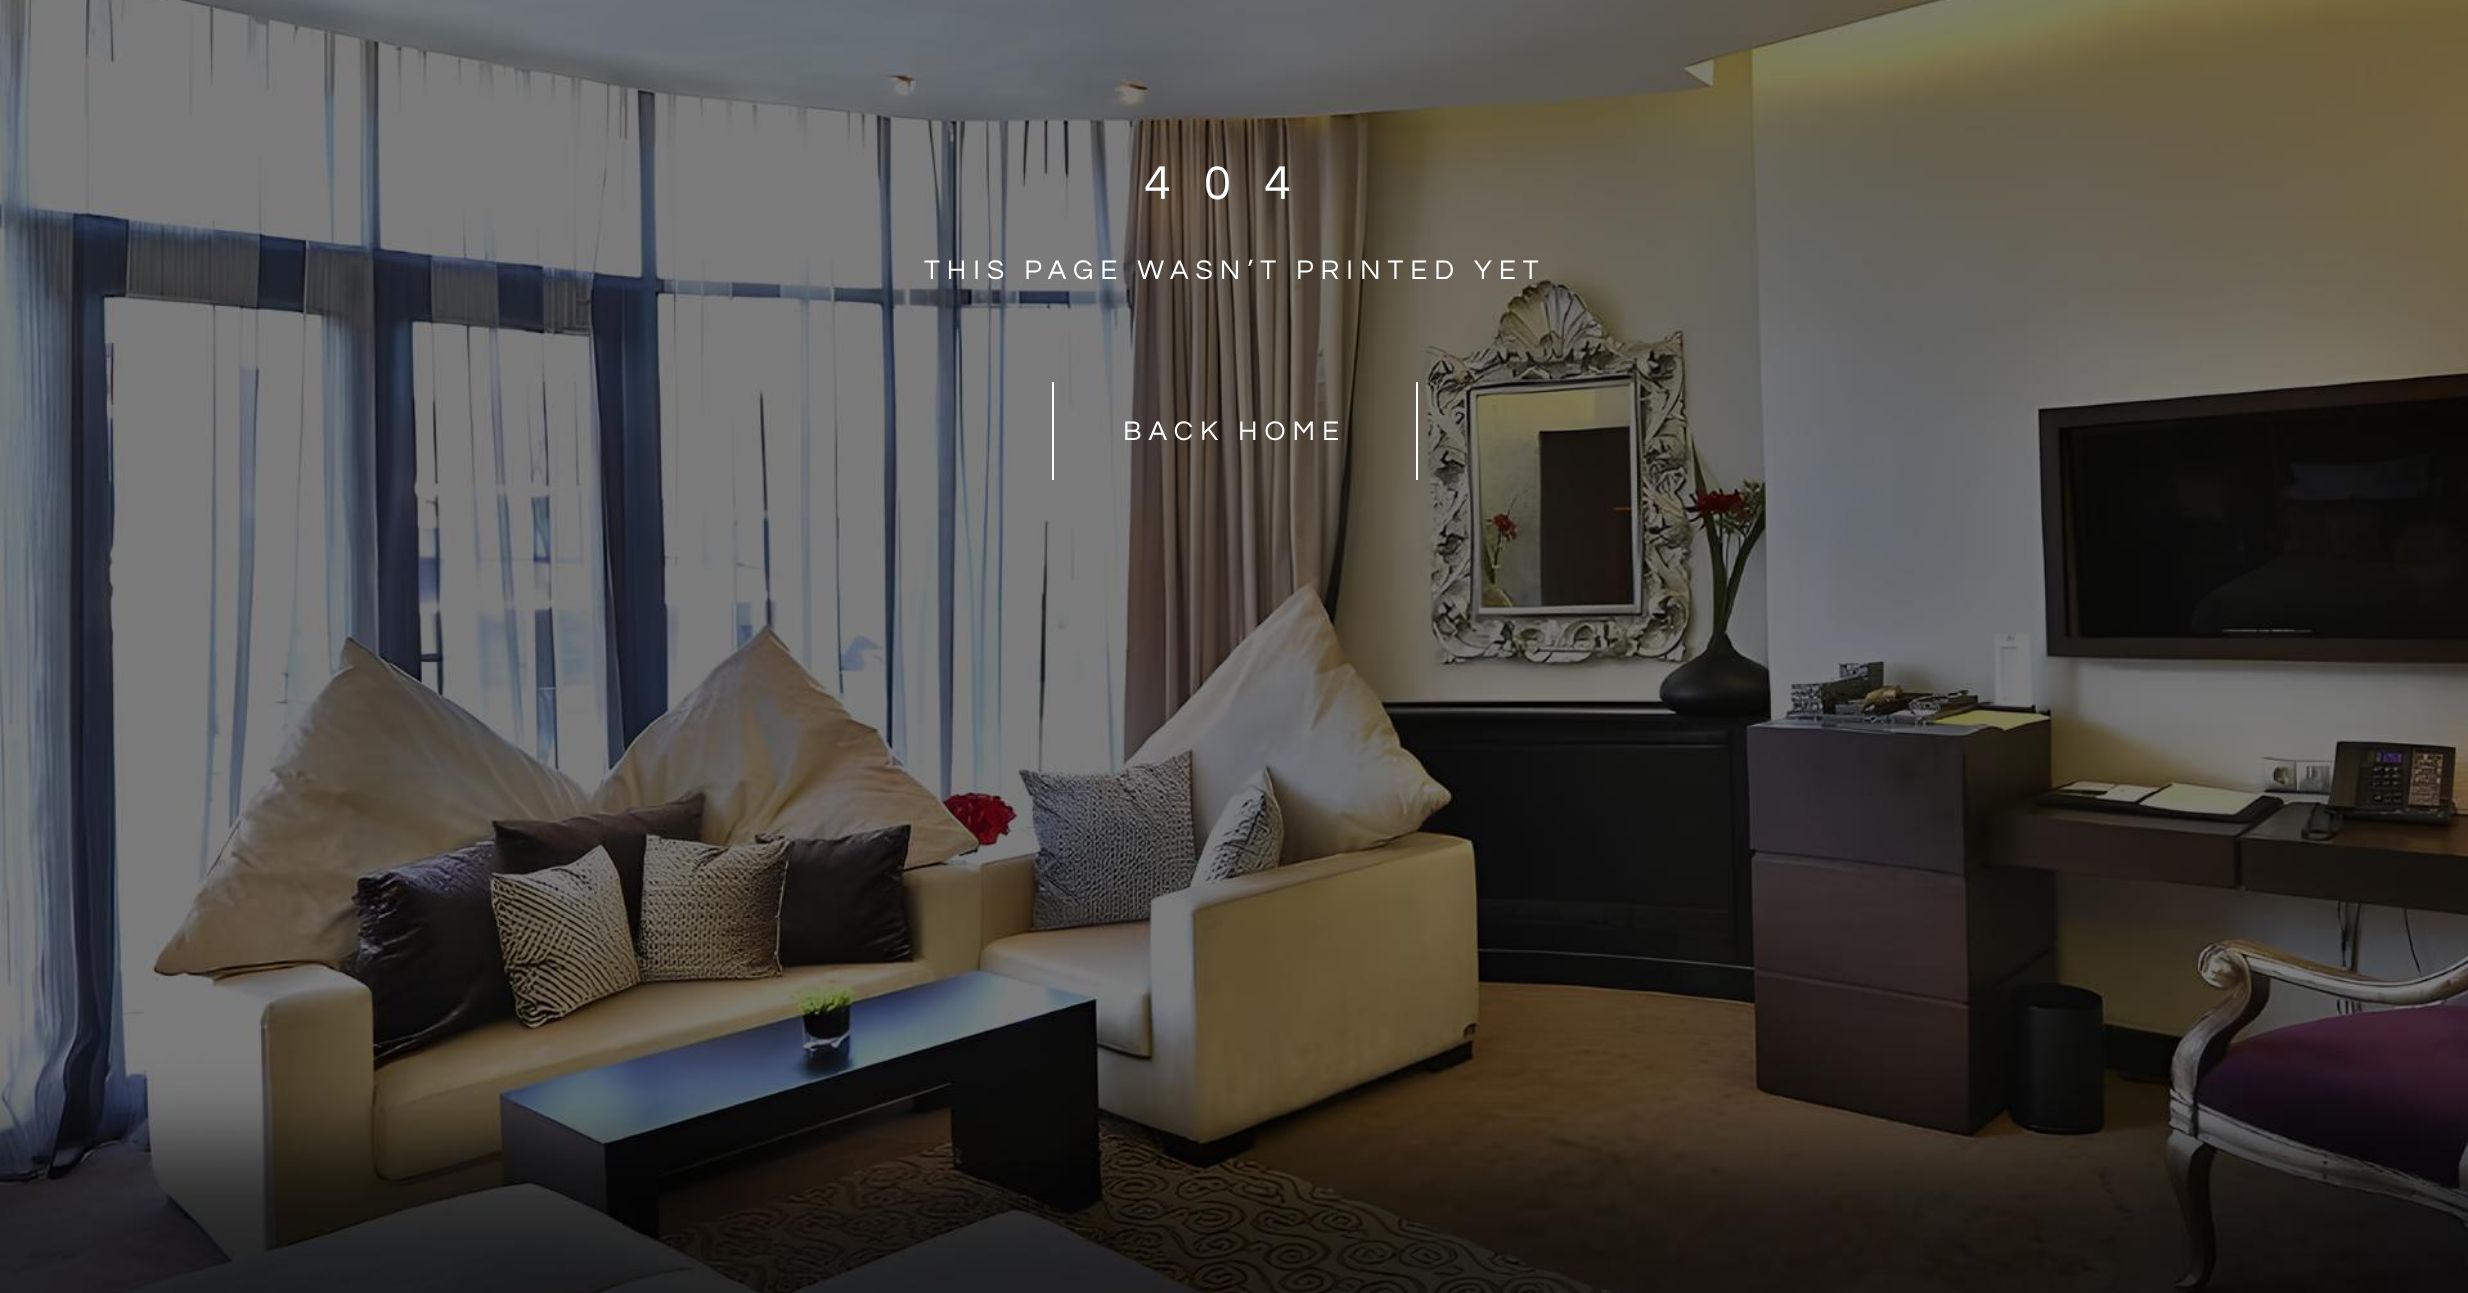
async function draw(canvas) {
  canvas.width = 2468;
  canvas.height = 1293;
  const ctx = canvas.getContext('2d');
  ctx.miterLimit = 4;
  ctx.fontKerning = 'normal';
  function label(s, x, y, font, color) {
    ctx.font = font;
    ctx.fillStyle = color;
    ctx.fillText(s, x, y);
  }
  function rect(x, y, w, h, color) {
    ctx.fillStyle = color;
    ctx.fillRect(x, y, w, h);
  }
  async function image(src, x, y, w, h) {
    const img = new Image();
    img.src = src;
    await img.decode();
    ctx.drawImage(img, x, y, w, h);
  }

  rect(0, 0, 2468, 1293, '#fff');
  await image('assets/img1.png', 0, 0, 2468, 1293);
  ctx.letterSpacing = '33px';
  label('404', 1144, 199, '49px Questrial', '#fff');
  ctx.letterSpacing = '7px';
  label('THIS PAGE WASN’T PRINTED YET', 924, 279, '28px Questrial', '#fff');
  rect(1416, 382, 2, 98, '#fff');
  rect(1052, 382, 2, 98, '#fff');
  label('BACK HOME', 1123, 440, '28px Questrial', '#fff');
}

draw(document.querySelector('canvas'));
